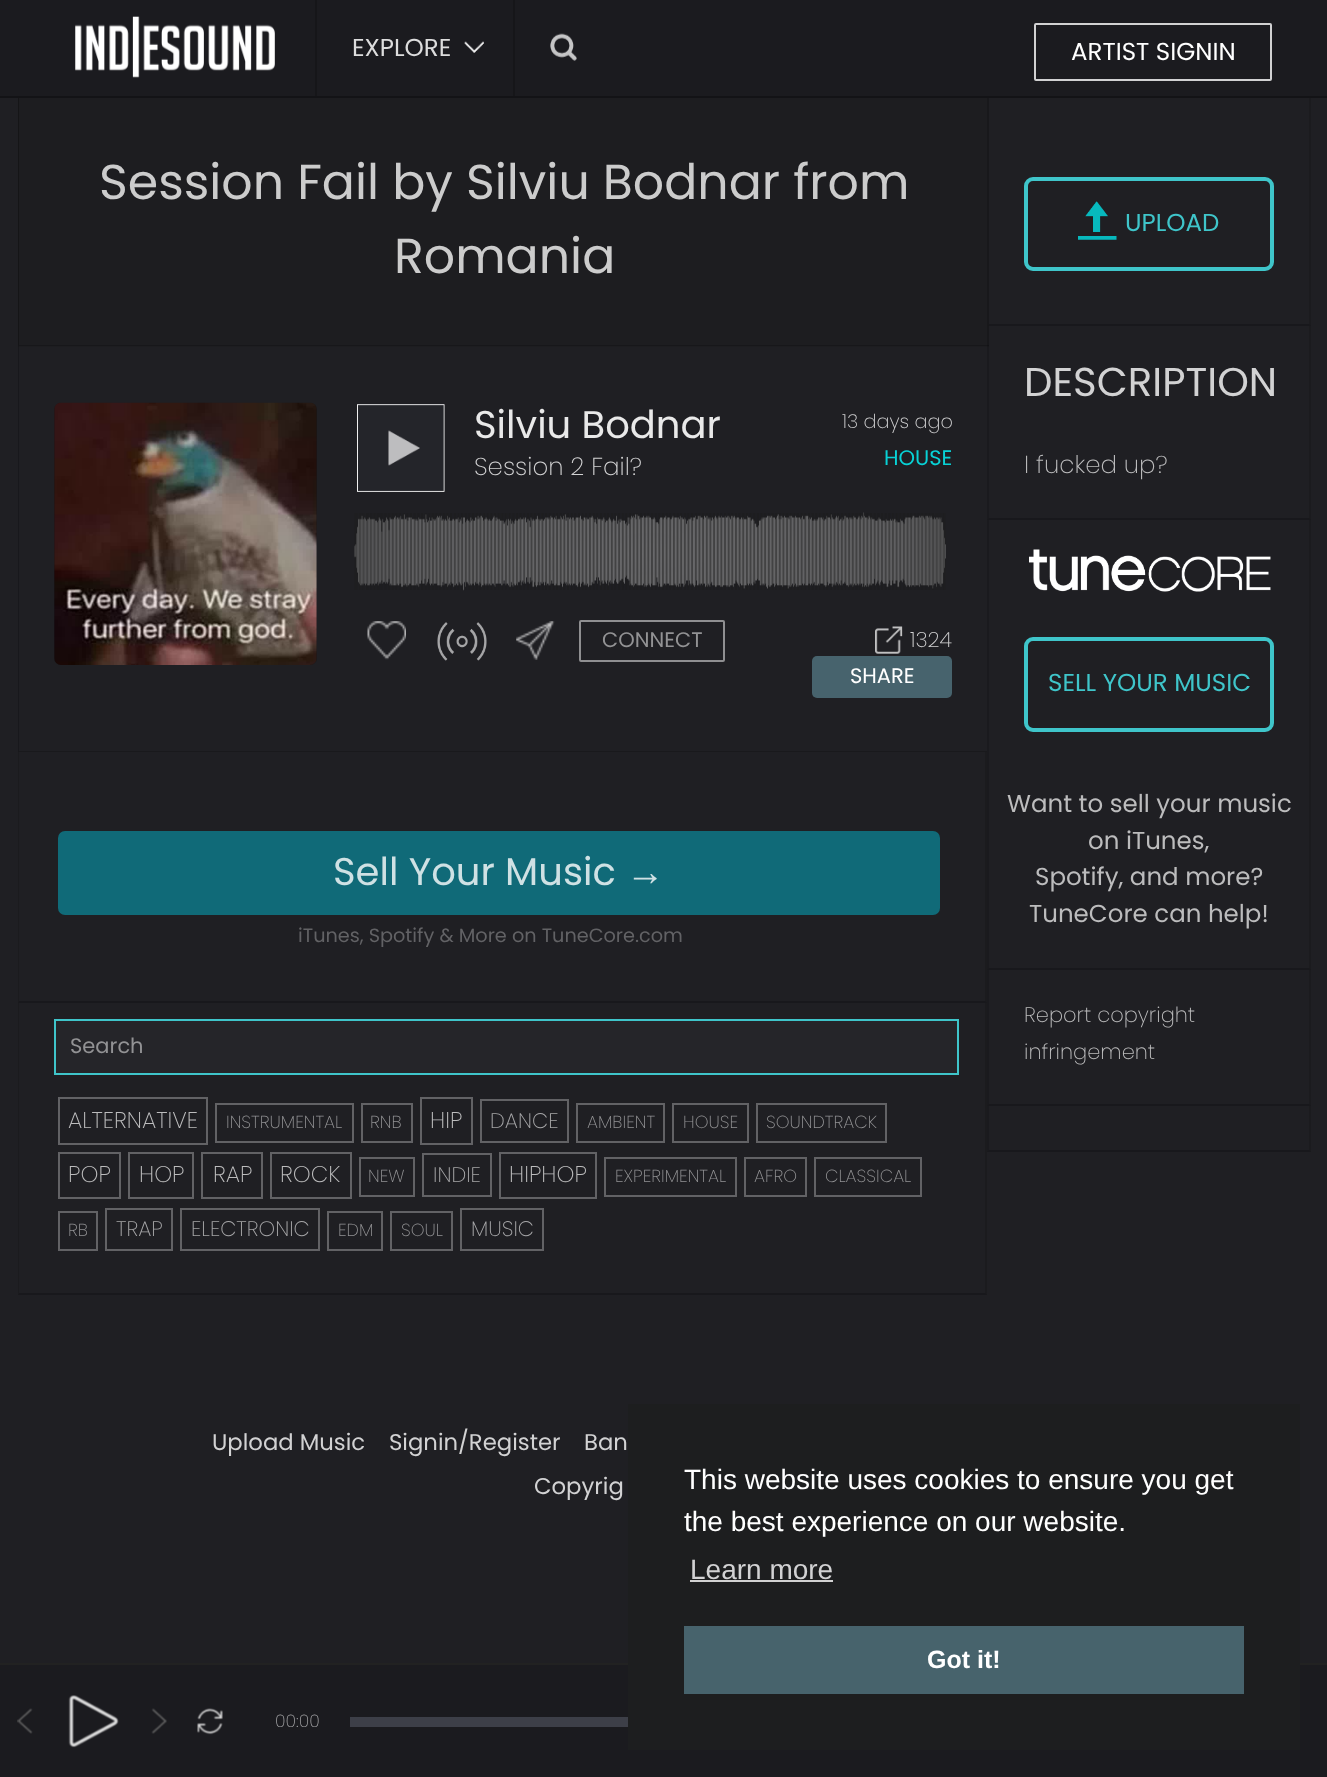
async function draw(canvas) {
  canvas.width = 1327;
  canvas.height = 1777;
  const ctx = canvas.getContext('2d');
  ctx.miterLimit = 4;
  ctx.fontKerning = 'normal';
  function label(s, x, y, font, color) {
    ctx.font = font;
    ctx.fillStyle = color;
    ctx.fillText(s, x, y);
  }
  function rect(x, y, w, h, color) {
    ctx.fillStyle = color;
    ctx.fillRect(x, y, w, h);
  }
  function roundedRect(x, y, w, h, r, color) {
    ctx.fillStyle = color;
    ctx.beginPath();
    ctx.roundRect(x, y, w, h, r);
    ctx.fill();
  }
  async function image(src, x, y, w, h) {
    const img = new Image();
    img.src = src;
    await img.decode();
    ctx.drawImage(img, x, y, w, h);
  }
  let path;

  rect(0, 0, 1327, 1777, '#1f1f23');
  rect(0, 0, 1327, 96, '#1b1b1f');
  rect(18, 98, 971, 249, '#1d1d20');
  ctx.fillStyle = '#17171a';
  path = new Path2D('M989 346H18L19 345H989Z');
  ctx.fill(path);
  ctx.fillStyle = '#00000042';
  path = new Path2D('M18 346V96H19V345Z');
  ctx.fill(path);
  ctx.fillStyle = '#1b1b1e';
  path = new Path2D('M1311 96V326L1309 324V96Z');
  ctx.fill(path);
  ctx.fillStyle = '#00000033';
  path = new Path2D('M1311 326H987L989 324H1309Z');
  ctx.fill(path);
  ctx.fillStyle = '#00000024';
  path = new Path2D('M987 326V96H989V324Z');
  ctx.fill(path);
  rect(0, 96, 1327, 2, '#131316');
  await image('assets/img1.png', 75, 16, 200, 62);
  rect(513, 0, 2, 96, '#161619');
  rect(315, 0, 2, 96, '#161619');
  label('EXPLORE', 352, 56, '24.5px Poppins', '#ddd');
  await image('assets/img2.png', 464, 41, 20, 12);
  await image('assets/img3.png', 550, 33, 27, 28);
  ctx.beginPath();
  ctx.roundRect(1035, 24, 236, 56, 1);
  ctx.strokeStyle = '#d1d1d2';
  ctx.lineWidth = 2;
  ctx.stroke();
  label('ARTIST SIGNIN', 1071, 60, '24.5px Poppins', '#fff');
  label('Session Fail by Silviu Bodnar from', 99, 199, '49px Poppins', '#ccc');
  label('Romania', 394, 273, '49px Poppins', '#ccc');
  ctx.fillStyle = '#19191c';
  path = new Path2D('M987 752H18L19 751H987Z');
  ctx.fill(path);
  ctx.fillStyle = '#00000033';
  path = new Path2D('M18 752V346H19V751Z');
  ctx.fill(path);
  roundedRect(54, 403, 263, 262, 7, '#19191c');
  await image('assets/img4.png', 54, 402, 263, 263);
  await image('assets/img5.png', 357, 404, 88, 88);
  label('Silviu Bodnar', 474, 438, '38.5px Poppins', '#e9e9e9');
  label('Session 2 Fail?', 474, 475, '200 24.5px Poppins', '#d2d2d3');
  label('HOUSE', 884, 465, '21px Poppins', '#08d2d6');
  label('13 days ago', 842, 428, '200 19.25px Poppins', '#d2d2d3');
  await image('assets/img6.png', 354, 512, 592, 79);
  await image('assets/img7.png', 354, 513, 592, 77);
  await image('assets/img8.png', 367, 621, 39, 39);
  await image('assets/img9.png', 437, 622, 50, 39);
  await image('assets/img10.png', 516, 621, 39, 39);
  ctx.beginPath();
  ctx.roundRect(580, 621, 144, 40, 1);
  ctx.strokeStyle = '#8f8f91';
  ctx.stroke();
  label('CONNECT', 602, 647, '21px Poppins', '#929294');
  await image('assets/img11.png', 875, 626, 28, 28);
  label('1324', 910, 647, '200 21px Poppins', '#d2d2d3');
  roundedRect(812, 656, 140, 42, 5, '#47636d');
  label('SHARE', 850, 683, '21px Poppins', '#fff');
  ctx.fillStyle = '#1b1b1e';
  path = new Path2D('M987 752V1003L985 1001V752Z');
  ctx.fill(path);
  ctx.fillStyle = '#00000033';
  path = new Path2D('M987 1003H18L19 1001H985Z');
  ctx.fill(path);
  ctx.fillStyle = '#1b1b1e';
  path = new Path2D('M18 1003V752H19V1001Z');
  ctx.fill(path);
  roundedRect(58, 831, 882, 84, 7, '#106a78');
  label('Sell Your Music', 333, 885, '38.5px Poppins', '#cfe1e4');
  label('→', 626, 885, '38.5px Liberation Sans', '#cfe1e4');
  label('iTunes, Spotify & More on TuneCore.com', 298, 942, '19.25px Poppins', '#626265');
  ctx.fillStyle = '#1b1b1e';
  path = new Path2D('M987 1003V1295L985 1293V1003Z');
  ctx.fill(path);
  ctx.fillStyle = '#00000033';
  path = new Path2D('M987 1295H18L19 1293H985Z');
  ctx.fill(path);
  ctx.fillStyle = '#1b1b1e';
  path = new Path2D('M18 1295V1003H19V1293Z');
  ctx.fill(path);
  ctx.fillStyle = '#252529';
  ctx.beginPath();
  ctx.rect(55, 1020, 903, 54);
  ctx.fill();
  ctx.strokeStyle = '#3fc5ca';
  ctx.stroke();
  label('Search', 70, 1053, '21px Poppins', '#929294');
  ctx.strokeStyle = '#626265';
  ctx.strokeRect(59, 1098, 148, 46);
  label('ALTERNATIVE', 68, 1128, '200 22.75px Poppins', '#bcbcbd');
  ctx.strokeRect(216, 1104, 137, 38);
  label('INSTRUMENTAL', 226, 1128, '200 17.5px Poppins', '#929294');
  ctx.strokeRect(362, 1104, 50, 38);
  label('RNB', 370, 1128, '200 17.5px Poppins', '#929294');
  ctx.strokeRect(421, 1098, 51, 46);
  label('HIP', 430, 1128, '200 22.75px Poppins', '#bcbcbd');
  ctx.strokeRect(481, 1100, 87, 42);
  label('DANCE', 490, 1128, '200 21px Poppins', '#a5a5a7');
  ctx.strokeRect(577, 1104, 87, 38);
  label('AMBIENT', 587, 1128, '200 17.5px Poppins', '#929294');
  ctx.strokeRect(673, 1104, 75, 38);
  label('HOUSE', 683, 1128, '200 17.5px Poppins', '#929294');
  ctx.strokeRect(757, 1104, 129, 38);
  label('SOUNDTRACK', 766, 1128, '200 17.5px Poppins', '#929294');
  ctx.strokeRect(59, 1153, 61, 45);
  label('POP', 68, 1182, '200 22.75px Poppins', '#bcbcbd');
  ctx.strokeRect(129, 1153, 64, 45);
  label('HOP', 139, 1182, '200 22.75px Poppins', '#bcbcbd');
  ctx.strokeRect(202, 1153, 60, 45);
  label('RAP', 213, 1182, '200 22.75px Poppins', '#bcbcbd');
  ctx.strokeRect(271, 1153, 80, 45);
  label('ROCK', 280, 1182, '200 22.75px Poppins', '#bcbcbd');
  ctx.strokeRect(360, 1158, 54, 38);
  label('NEW', 368, 1182, '200 17.5px Poppins', '#929294');
  ctx.strokeRect(423, 1154, 68, 42);
  label('INDIE', 433, 1182, '200 21px Poppins', '#a5a5a7');
  ctx.strokeRect(500, 1153, 96, 45);
  label('HIPHOP', 509, 1182, '200 22.75px Poppins', '#bcbcbd');
  ctx.strokeRect(605, 1158, 131, 38);
  label('EXPERIMENTAL', 615, 1182, '200 17.5px Poppins', '#929294');
  ctx.strokeRect(745, 1158, 61, 38);
  label('AFRO', 754, 1182, '200 17.5px Poppins', '#929294');
  ctx.strokeRect(815, 1158, 106, 38);
  label('CLASSICAL', 825, 1182, '200 17.5px Poppins', '#929294');
  ctx.strokeRect(59, 1212, 38, 38);
  label('RB', 68, 1236, '200 17.5px Poppins', '#929294');
  ctx.strokeRect(106, 1209, 66, 41);
  label('TRAP', 116, 1236, '200 21px Poppins', '#a5a5a7');
  ctx.strokeRect(181, 1209, 138, 41);
  label('ELECTRONIC', 191, 1236, '200 21px Poppins', '#a5a5a7');
  ctx.strokeRect(328, 1212, 54, 38);
  label('EDM', 338, 1236, '200 17.5px Poppins', '#929294');
  ctx.strokeRect(391, 1212, 61, 38);
  label('SOUL', 401, 1236, '200 17.5px Poppins', '#929294');
  ctx.strokeRect(461, 1209, 82, 41);
  label('MUSIC', 471, 1236, '200 21px Poppins', '#a5a5a7');
  ctx.beginPath();
  ctx.roundRect(1026, 179, 246, 90, 7);
  ctx.strokeStyle = '#3fc5ca';
  ctx.lineWidth = 4;
  ctx.stroke();
  await image('assets/img12.png', 1078, 201, 39, 39);
  label('UPLOAD', 1125, 231, '24.5px Poppins', '#3fc5ca');
  ctx.fillStyle = '#1b1b1e';
  path = new Path2D('M1311 326V520L1309 518V326Z');
  ctx.fill(path);
  ctx.fillStyle = '#00000033';
  path = new Path2D('M1311 520H987L989 518H1309Z');
  ctx.fill(path);
  ctx.fillStyle = '#00000024';
  path = new Path2D('M987 520V326H989V518Z');
  ctx.fill(path);
  label('DESCRIPTION', 1024, 396, '40.25px Poppins', '#d2d2d3');
  label('I fucked up?', 1024, 473, '200 24.5px Poppins', '#bcbcbd');
  ctx.fillStyle = '#1b1b1e';
  path = new Path2D('M1311 520V970L1309 968V520Z');
  ctx.fill(path);
  ctx.fillStyle = '#00000033';
  path = new Path2D('M1311 970H987L989 968H1309Z');
  ctx.fill(path);
  ctx.fillStyle = '#00000024';
  path = new Path2D('M987 970V520H989V968Z');
  ctx.fill(path);
  await image('assets/img13.png', 1029, 549, 242, 43);
  ctx.beginPath();
  ctx.roundRect(1026, 639, 246, 91, 7);
  ctx.stroke();
  label('SELL YOUR MUSIC', 1048, 691, '24.5px Poppins', '#3fc5ca');
  label('Want to sell your music', 1007, 812, '24.5px Poppins', '#bcbcbd');
  label('on iTunes,', 1088, 849, '24.5px Poppins', '#bcbcbd');
  label('Spotify, and more?', 1035, 885, '24.5px Poppins', '#bcbcbd');
  label('TuneCore can help!', 1029, 922, '24.5px Poppins', '#bcbcbd');
  ctx.fillStyle = '#1b1b1e';
  path = new Path2D('M1311 970V1106L1309 1104V970Z');
  ctx.fill(path);
  ctx.fillStyle = '#00000033';
  path = new Path2D('M1311 1106H987L989 1104H1309Z');
  ctx.fill(path);
  ctx.fillStyle = '#00000024';
  path = new Path2D('M987 1106V970H989V1104Z');
  ctx.fill(path);
  label('Report copyright', 1024, 1022, '200 21px Poppins', '#bcbcbd');
  label('infringement', 1024, 1059, '200 21px Poppins', '#bcbcbd');
  ctx.fillStyle = '#1b1b1e';
  path = new Path2D('M1311 1106V1152L1309 1150V1106Z');
  ctx.fill(path);
  ctx.fillStyle = '#00000033';
  path = new Path2D('M1311 1152H987L989 1150H1309Z');
  ctx.fill(path);
  ctx.fillStyle = '#00000024';
  path = new Path2D('M987 1152V1106H989V1150Z');
  ctx.fill(path);
  label('Upload Music', 212, 1450, '22.75px Poppins', '#d2d2d3');
  label('Signin/Register', 389, 1450, '22.75px Poppins', '#d2d2d3');
  label('Ban', 584, 1450, '22.75px Poppins', '#d2d2d3');
  label('Copyrig', 534, 1494, '22.75px Poppins', '#d2d2d3');
  rect(0, 1665, 1327, 112, '#1b1b1f');
  rect(0, 1663, 1327, 2, '#222');
  rect(628, 1404, 672, 346, '#1d1e1f');
  label('This website uses cookies to ensure you get', 684, 1489, '28px Liberation Sans', '#fff');
  label('the best experience on our website.', 684, 1531, '28px Liberation Sans', '#fff');
  label('Learn more', 690, 1579, '28px Liberation Sans', '#d2d2d3');
  rect(690, 1580, 143, 2, '#d2d2d2');
  rect(684, 1626, 560, 68, '#47636c');
  label('Got it!', 927, 1668, 'bold 25px Liberation Sans', '#fff');
  await image('assets/img14.png', 17, 1708, 16, 26);
  await image('assets/img15.png', 68, 1695, 51, 53);
  await image('assets/img16.png', 151, 1708, 16, 26);
  await image('assets/img17.png', 197, 1708, 26, 27);
  label('00:00', 275, 1727, '200 17.5px Poppins', '#a5a5a7');
  rect(350, 1717, 278, 10, '#3d3f48');
}

draw(document.querySelector('canvas'));
